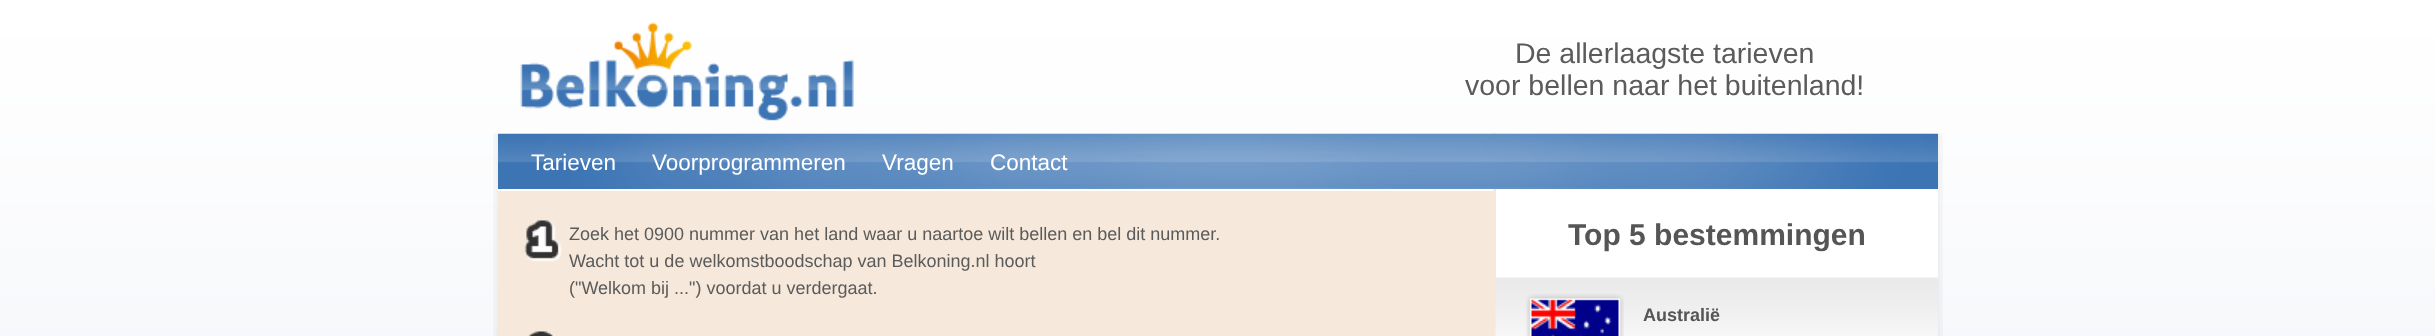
async function draw(canvas) {
  canvas.width = 2435;
  canvas.height = 336;
  const ctx = canvas.getContext('2d');
  ctx.miterLimit = 4;
  ctx.fontKerning = 'normal';
  function label(s, x, y, font, color) {
    ctx.font = font;
    ctx.fillStyle = color;
    ctx.fillText(s, x, y);
  }
  function rect(x, y, w, h, color) {
    ctx.fillStyle = color;
    ctx.fillRect(x, y, w, h);
  }
  async function image(src, x, y, w, h) {
    const img = new Image();
    img.src = src;
    await img.decode();
    ctx.drawImage(img, x, y, w, h);
  }

  rect(0, 0, 2435, 336, '#fff');
  await image('assets/img1.png', 0, 0, 2435, 336);
  await image('assets/img2.png', 520, 22, 334, 99);
  label('De allerlaagste tarieven', 1515, 63, '28.5px Liberation Sans', '#5b5b5b');
  label('voor bellen naar het buitenland!', 1465, 95, '28.5px Liberation Sans', '#5b5b5b');
  await image('assets/img3.png', 493, 133, 1450, 203);
  await image('assets/img4.png', 498, 133, 1440, 145);
  await image('assets/img5.png', 498, 133, 1440, 56);
  label('Tarieven', 531, 170, '22.5px Liberation Sans', '#fff');
  label('Voorprogrammeren', 652, 170, '22.5px Liberation Sans', '#fff');
  label('Vragen', 882, 170, '22.5px Liberation Sans', '#fff');
  label('Contact', 990, 170, '22.5px Liberation Sans', '#fff');
  rect(498, 191, 998, 145, '#f6e9dc');
  await image('assets/img6.png', 524, 220, 38, 42);
  label('Zoek het 0900 nummer van het land waar u naartoe wilt bellen en bel dit nummer.', 569, 240, '18px Liberation Sans', '#5b5b5b');
  label('Wacht tot u de welkomstboodschap van Belkoning.nl hoort', 569, 267, '18px Liberation Sans', '#5b5b5b');
  label('("Welkom bij ...") voordat u verdergaat.', 569, 294, '18px Liberation Sans', '#5b5b5b');
  await image('assets/img7.png', 528, 331, 27, 5);
  label('Top 5 bestemmingen', 1568, 245, 'bold 30px Liberation Sans', '#555');
  await image('assets/img8.png', 1495, 277, 443, 59);
  await image('assets/img9.png', 1526, 294, 98, 42);
  label('Australië', 1643, 321, 'bold 18px Liberation Sans', '#555');
}

draw(document.querySelector('canvas'));
